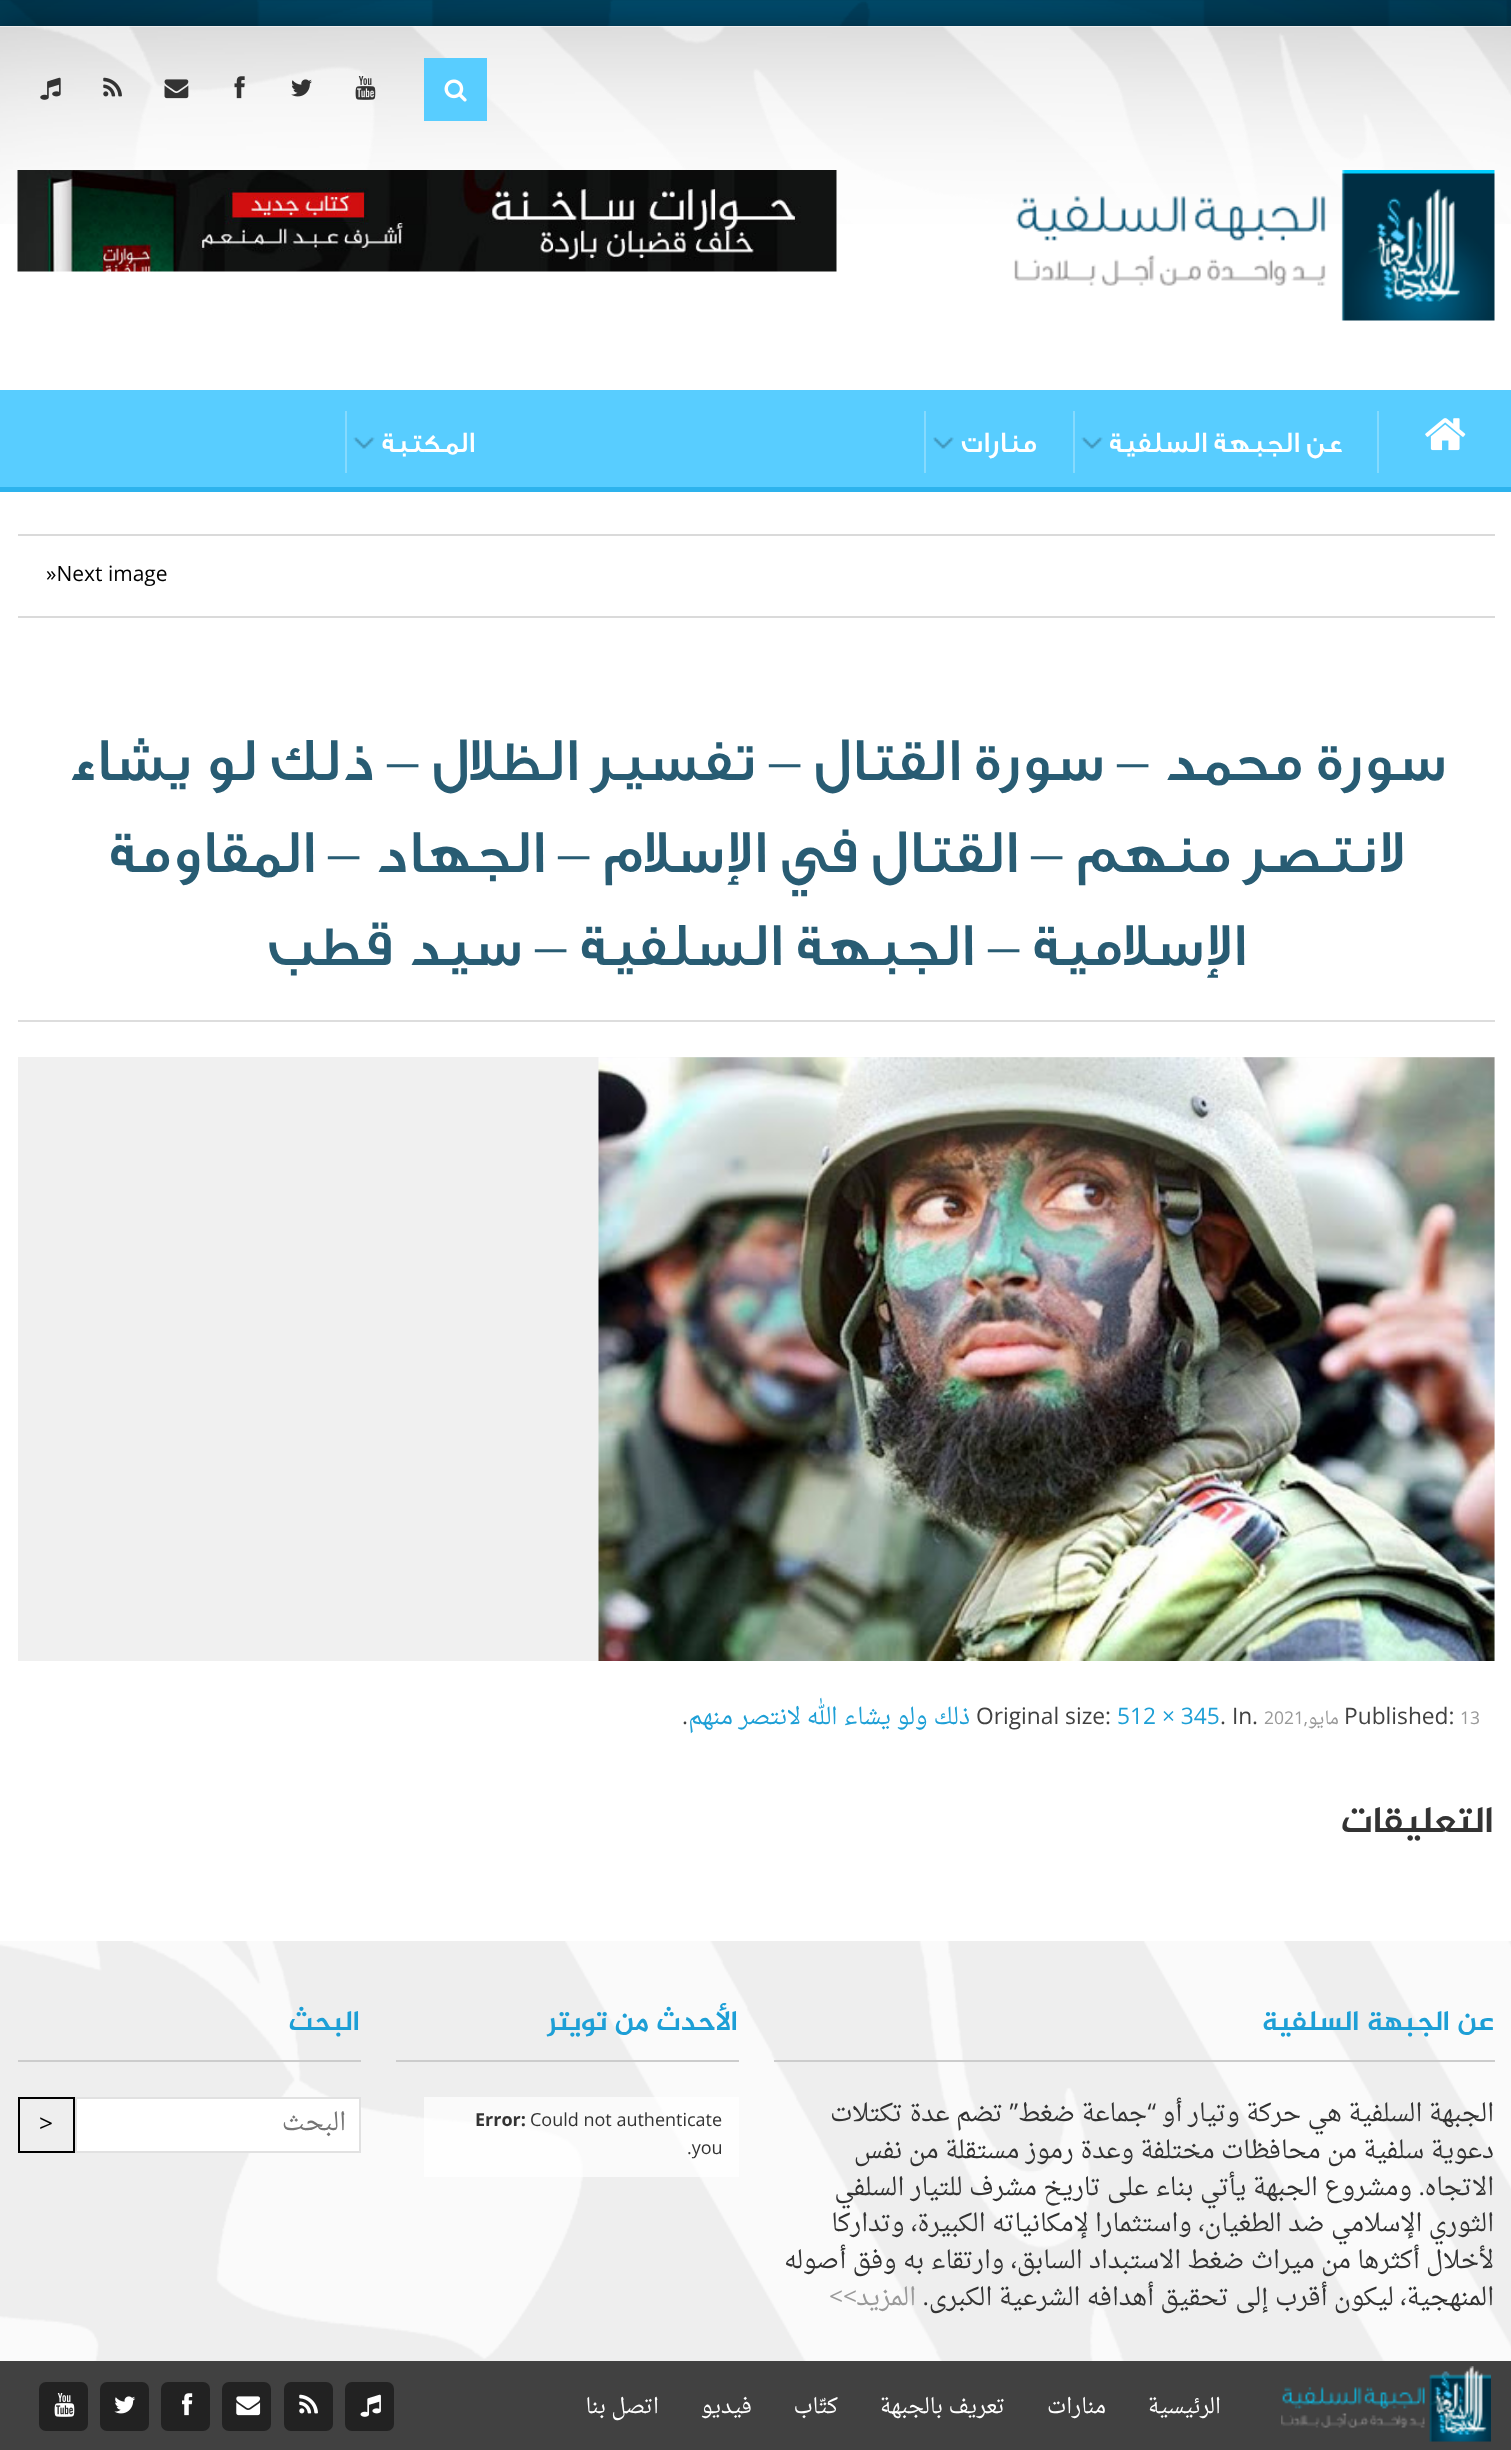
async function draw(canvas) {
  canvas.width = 1511;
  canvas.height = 2450;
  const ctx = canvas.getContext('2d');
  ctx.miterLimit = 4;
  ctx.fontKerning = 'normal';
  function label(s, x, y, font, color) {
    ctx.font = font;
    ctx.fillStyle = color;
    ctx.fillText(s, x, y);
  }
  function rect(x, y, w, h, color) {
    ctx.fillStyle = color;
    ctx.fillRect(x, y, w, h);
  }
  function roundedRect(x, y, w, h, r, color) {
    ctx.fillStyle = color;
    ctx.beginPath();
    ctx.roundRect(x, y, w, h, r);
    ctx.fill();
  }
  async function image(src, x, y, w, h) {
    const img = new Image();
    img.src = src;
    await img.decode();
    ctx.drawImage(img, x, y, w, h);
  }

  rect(0, 0, 1511, 2450, '#fff');
  await image('assets/img1.png', 0, 0, 1511, 26);
  ctx.fillStyle = '#0000006b';
  ctx.filter = 'blur(16px)';
  ctx.beginPath();
  ctx.rect(0, 26, 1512, 2424);
  ctx.fill();
  ctx.filter = 'none';
  rect(0, 26, 1511, 1915, '#fff');
  await image('assets/img2.png', 0, 26, 1511, 198);
  rect(424, 58, 63, 63, '#58cdff');
  await image('assets/img3.png', 444, 79, 23, 23);
  await image('assets/img4.png', 355, 76, 21, 24);
  await image('assets/img5.png', 291, 79, 21, 18);
  await image('assets/img6.png', 234, 76, 11, 23);
  await image('assets/img7.png', 164, 79, 25, 20);
  await image('assets/img8.png', 103, 77, 19, 20);
  await image('assets/img9.png', 40, 77, 21, 23);
  await image('assets/img10.png', 1014, 170, 481, 151);
  await image('assets/img11.png', 17, 170, 820, 102);
  rect(0, 390, 1511, 97, '#58cdff');
  rect(0, 487, 1511, 5, '#2db3ed');
  await image('assets/img12.png', 1425, 418, 41, 33);
  await image('assets/img13.png', 1081, 437, 22, 12);
  rect(1377, 411, 2, 62, '#85dafe');
  rect(1073, 411, 2, 62, '#85dafe');
  ctx.direction = 'rtl';
  label('عن الجبهة السلفية', 1343, 452, '500 29.75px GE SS', '#fff');
  await image('assets/img14.png', 933, 437, 21, 12);
  rect(924, 411, 2, 62, '#85dafe');
  label('منارات', 1037, 452, '500 29.75px GE SS', '#fff');
  await image('assets/img13.png', 353, 437, 22, 12);
  rect(345, 411, 2, 62, '#85dafe');
  label('المكتبة', 475, 452, '500 29.75px GE SS', '#fff');
  rect(18, 534, 1477, 2, '#dadada');
  rect(18, 616, 1477, 2, '#dadada');
  ctx.direction = 'ltr';
  label('»Next image', 46, 581, '21px Open Sans', '#000');
  rect(18, 1020, 1477, 2, '#ddd');
  ctx.direction = 'rtl';
  label('سورة محمد', 1446, 780, '500 61.5px GE SS', '#285c73');
  label('–', 1148, 780, '61.5px Liberation Serif', '#285c73');
  label('سورة القتال', 1104, 780, '500 61.5px GE SS', '#285c73');
  label('–', 800, 780, '61.5px Liberation Serif', '#285c73');
  label('تفسير الظلال', 755, 780, '500 61.5px GE SS', '#285c73');
  label('–', 418, 780, '61.5px Liberation Serif', '#285c73');
  label('ذلك لو يشاء', 374, 780, '500 61.5px GE SS', '#285c73');
  label('لانتصر منهم', 1404, 872, '500 61.5px GE SS', '#285c73');
  label('–', 1062, 872, '61.5px Liberation Serif', '#285c73');
  label('القتال في الإسلام', 1018, 872, '500 61.5px GE SS', '#285c73');
  label('–', 589, 872, '61.5px Liberation Serif', '#285c73');
  label('الجهاد', 545, 872, '500 61.5px GE SS', '#285c73');
  label('–', 359, 872, '61.5px Liberation Serif', '#285c73');
  label('المقاومة', 315, 872, '500 61.5px GE SS', '#285c73');
  label('الإسلامية', 1246, 965, '500 61.5px GE SS', '#285c73');
  label('–', 1019, 965, '61.5px Liberation Serif', '#285c73');
  label('الجبهة السلفية', 974, 965, '500 61.5px GE SS', '#285c73');
  label('–', 566, 965, '61.5px Liberation Serif', '#285c73');
  label('سيد قطب', 522, 965, '500 61.5px GE SS', '#285c73');
  rect(18, 1057, 1477, 604, '#f0f0f0');
  await image('assets/img15.png', 598, 1057, 897, 604);
  ctx.direction = 'ltr';
  label('13', 1460, 1724, '17.5px Open Sans', '#999');
  label('Published:', 1344, 1724, '22.75px Open Sans', '#414141');
  ctx.direction = 'rtl';
  label('مايو', 1339, 1724, '17.5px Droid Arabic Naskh', '#999');
  label(',', 1308, 1724, '17.5px Open Sans', '#999');
  ctx.direction = 'ltr';
  label('2021', 1264, 1724, '17.5px Open Sans', '#999');
  label('.', 1252, 1724, '22.75px Open Sans', '#414141');
  label('. In', 1220, 1724, '22.75px Open Sans', '#414141');
  label('512 × 345', 1117, 1724, '22.75px Open Sans', '#1d9fd6');
  label('Original size:', 976, 1724, '22.75px Open Sans', '#414141');
  ctx.direction = 'rtl';
  label('ذلك ولو يشاء الله لانتصر منهم', 970, 1724, '22.75px Droid Arabic Naskh', '#1d9fd6');
  ctx.direction = 'ltr';
  label('.', 682, 1724, '22.75px Open Sans', '#414141');
  ctx.direction = 'rtl';
  label('التعليقات', 1494, 1832, 'bold 36.75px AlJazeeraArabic', '#333');
  rect(0, 1941, 1511, 420, '#eee');
  await image('assets/img16.png', 0, 1941, 1511, 420);
  rect(774, 2060, 721, 2, '#ccc');
  label('عن الجبهة السلفية', 1494, 2030, 'bold 28px AlJazeeraArabic', '#1d9fd6');
  label('الجبهة السلفية هي حركة وتيار أو', 1494, 2121, '24.5px Droid Arabic Naskh', '#333');
  label('“', 1156, 2121, '24.5px Open Sans', '#333');
  label('جماعة ضغط', 1147, 2121, '24.5px Droid Arabic Naskh', '#333');
  label('”', 1018, 2121, '24.5px Open Sans', '#333');
  label('تضم عدة تكتلات', 1003, 2121, '24.5px Droid Arabic Naskh', '#333');
  label('دعوية سلفية من محافظات مختلفة وعدة رموز مستقلة من نفس', 1494, 2158, '24.5px Droid Arabic Naskh', '#333');
  label('الاتجاه', 1494, 2195, '24.5px Droid Arabic Naskh', '#333');
  label('.', 1425, 2195, '24.5px Open Sans', '#333');
  label('ومشروع الجبهة يأتي بناء على تاريخ مشرف للتيار السلفي', 1412, 2195, '24.5px Droid Arabic Naskh', '#333');
  label('الثوري الإسلامي ضد الطغيان، واستثمارا لإمكانياته الكبيرة، وتداركا', 1494, 2231, '24.5px Droid Arabic Naskh', '#333');
  label('لأخلال أكثرها من ميراث ضغط الاستبداد السابق، وارتقاء به وفق أصوله', 1494, 2268, '24.5px Droid Arabic Naskh', '#333');
  label('المنهجية، ليكون أقرب إلى تحقيق أهدافه الشرعية الكبرى', 1494, 2305, '24.5px Droid Arabic Naskh', '#333');
  label('المزيد', 916, 2305, '24.5px Droid Arabic Naskh', '#999');
  label('>>', 857, 2305, '24.5px Open Sans', '#999');
  label('.', 929, 2305, '24.5px Open Sans', '#333');
  rect(396, 2060, 343, 2, '#ccc');
  label('الأحدث من تويتر', 738, 2030, 'bold 28px AlJazeeraArabic', '#1d9fd6');
  rect(424, 2097, 315, 80, '#ffffffb3');
  ctx.direction = 'ltr';
  label('Could not authenticate', 530, 2126, '18px Open Sans', '#333');
  label('Error:', 475, 2126, 'bold 18px Open Sans', '#333');
  label('.you', 687, 2154, '18px Open Sans', '#333');
  rect(18, 2060, 343, 2, '#ccc');
  ctx.direction = 'rtl';
  label('البحث', 360, 2030, 'bold 28px AlJazeeraArabic', '#1d9fd6');
  ctx.fillStyle = '#fff';
  ctx.beginPath();
  ctx.rect(76, 2098, 284, 54);
  ctx.fill();
  ctx.strokeStyle = '#e1e1e1';
  ctx.lineWidth = 2;
  ctx.stroke();
  label('البحث', 346, 2130, '24.5px Droid Arabic Naskh', '#757575');
  ctx.strokeStyle = '#000';
  ctx.strokeRect(19, 2098, 55, 54);
  ctx.direction = 'ltr';
  label('>', 39, 2132, '24.5px Open Sans', '#000');
  rect(0, 2361, 1511, 89, '#414141');
  await image('assets/img17.png', 1281, 2366, 210, 76);
  ctx.direction = 'rtl';
  label('الرئيسية', 1221, 2413, '21px Droid Arabic Naskh', '#fff');
  label('منارات', 1106, 2413, '21px Droid Arabic Naskh', '#fff');
  label('تعريف بالجبهة', 1005, 2413, '21px Droid Arabic Naskh', '#fff');
  label('كتّاب', 838, 2413, '21px Droid Arabic Naskh', '#fff');
  label('فيديو', 752, 2413, '21px Droid Arabic Naskh', '#fff');
  label('اتصل بنا', 659, 2413, '21px Droid Arabic Naskh', '#fff');
  roundedRect(345, 2382, 49, 49, 7, '#222');
  await image('assets/img18.png', 360, 2394, 21, 23);
  roundedRect(284, 2382, 49, 49, 7, '#222');
  await image('assets/img19.png', 299, 2394, 19, 20);
  roundedRect(222, 2382, 49, 49, 7, '#222');
  await image('assets/img20.png', 236, 2396, 25, 20);
  roundedRect(161, 2382, 49, 49, 7, '#222');
  await image('assets/img21.png', 182, 2393, 11, 23);
  roundedRect(100, 2382, 49, 49, 7, '#222');
  await image('assets/img22.png', 114, 2396, 22, 18);
  roundedRect(39, 2382, 49, 49, 7, '#222');
  await image('assets/img23.png', 54, 2393, 21, 24);
}

draw(document.querySelector('canvas'));
